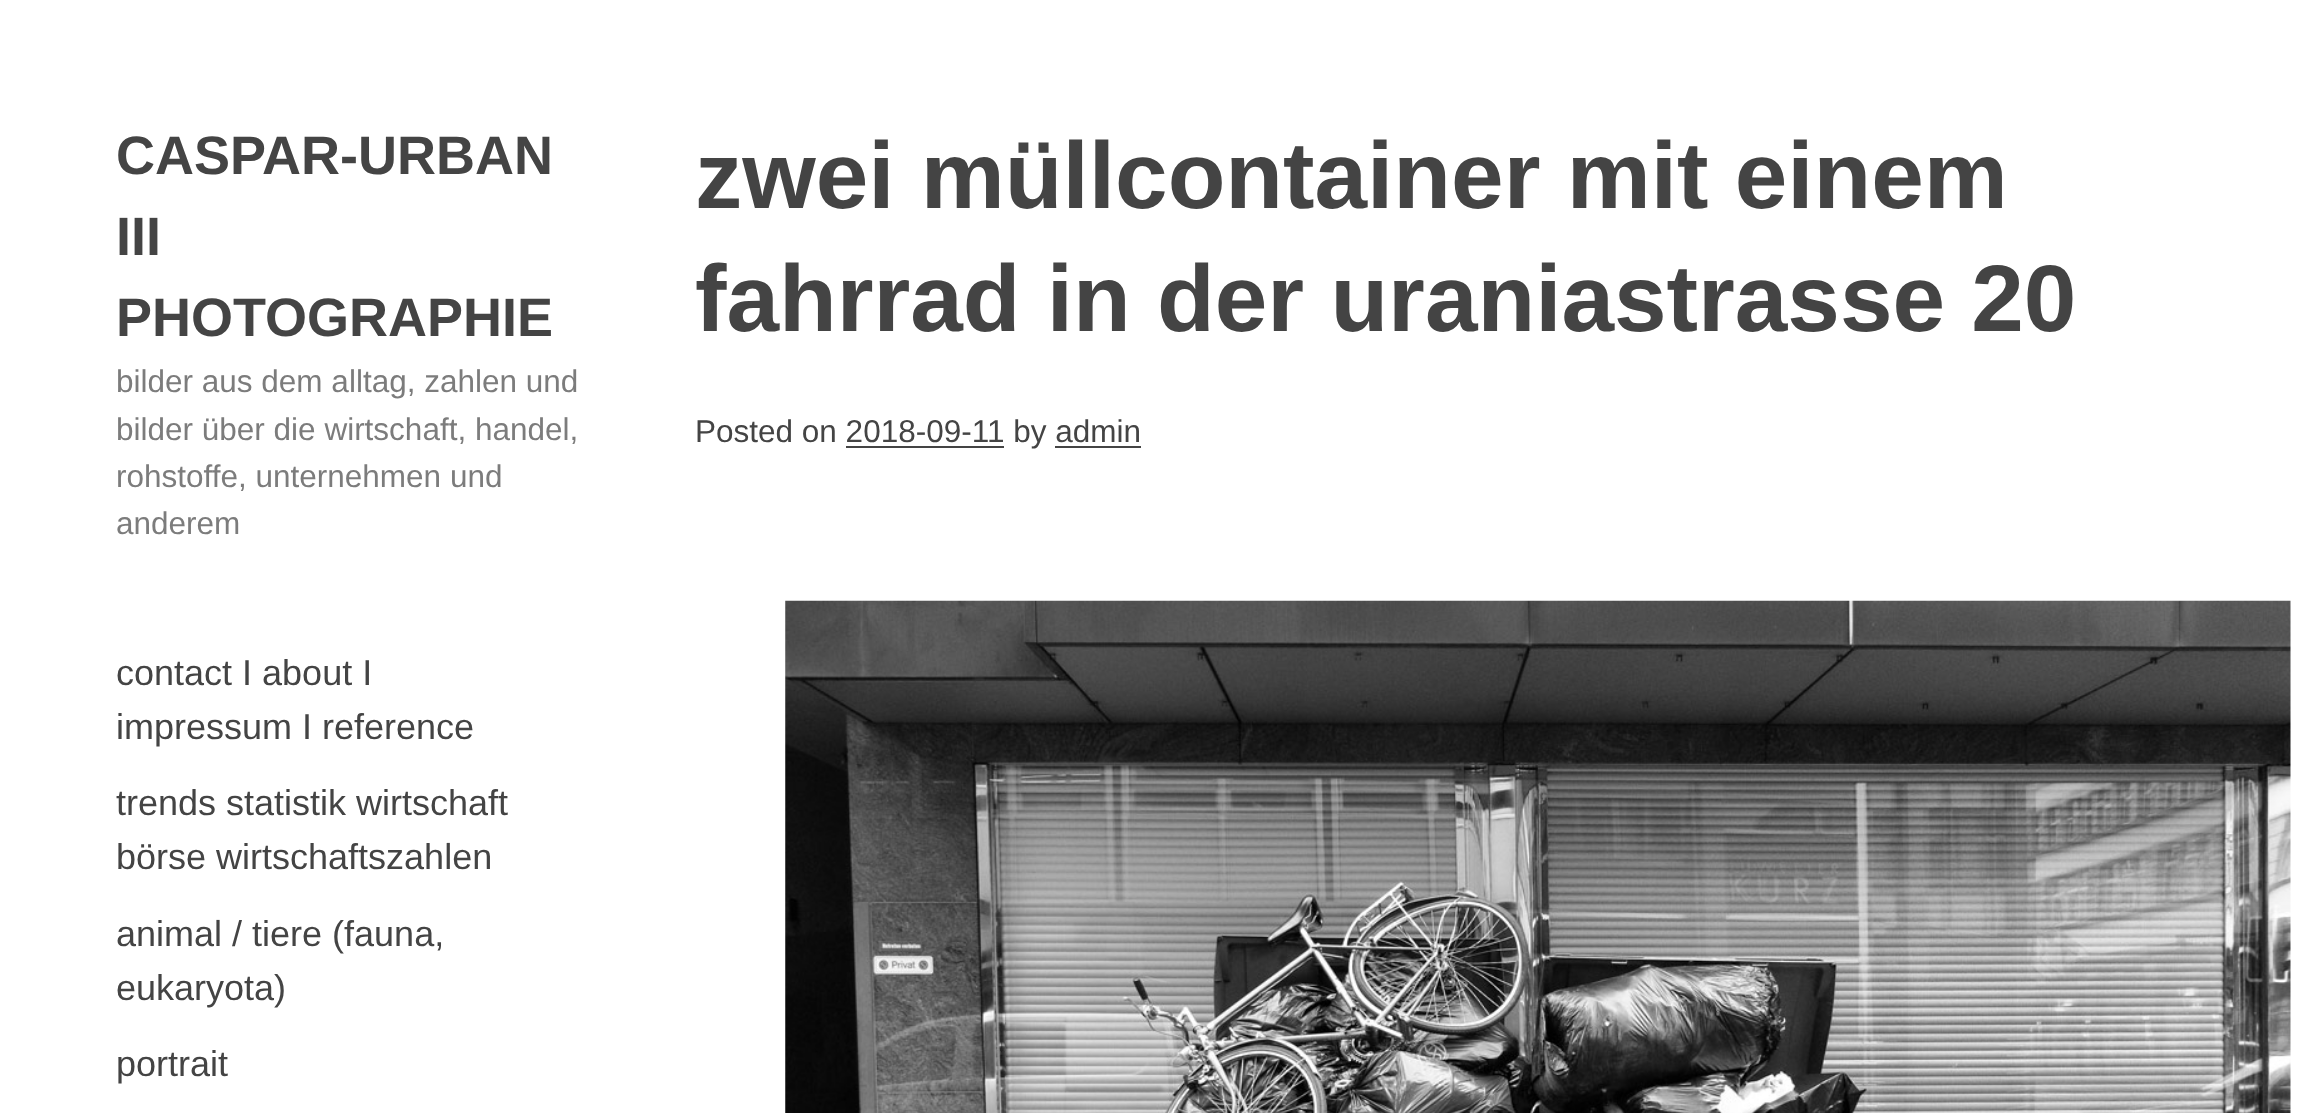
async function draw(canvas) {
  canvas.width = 2315;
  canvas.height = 1113;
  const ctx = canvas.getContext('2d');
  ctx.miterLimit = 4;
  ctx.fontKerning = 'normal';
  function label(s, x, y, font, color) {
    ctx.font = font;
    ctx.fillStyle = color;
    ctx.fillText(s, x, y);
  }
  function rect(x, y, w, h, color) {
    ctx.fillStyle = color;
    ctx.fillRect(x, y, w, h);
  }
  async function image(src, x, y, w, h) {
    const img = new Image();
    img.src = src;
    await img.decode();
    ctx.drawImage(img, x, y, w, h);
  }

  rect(0, 0, 2315, 1113, '#fff');
  label('CASPAR-URBAN', 116, 174, 'bold 54px Liberation Sans', '#444');
  label('III', 116, 255, 'bold 54px Liberation Sans', '#444');
  label('PHOTOGRAPHIE', 116, 336, 'bold 54px Liberation Sans', '#444');
  label('bilder aus dem alltag, zahlen und', 116, 392, '31.5px Liberation Sans', '#7c7c7c');
  label('bilder über die wirtschaft, handel,', 116, 440, '31.5px Liberation Sans', '#7c7c7c');
  label('rohstoffe, unternehmen und', 116, 487, '31.5px Liberation Sans', '#7c7c7c');
  label('anderem', 116, 534, '31.5px Liberation Sans', '#7c7c7c');
  label('contact I about I', 116, 685, '36px Liberation Sans', '#444');
  label('impressum I reference', 116, 739, '36px Liberation Sans', '#444');
  label('trends statistik wirtschaft', 116, 815, '36px Liberation Sans', '#444');
  label('börse wirtschaftszahlen', 116, 869, '36px Liberation Sans', '#444');
  label('animal / tiere (fauna,', 116, 946, '36px Liberation Sans', '#444');
  label('eukaryota)', 116, 1000, '36px Liberation Sans', '#444');
  label('portrait', 116, 1076, '36px Liberation Sans', '#444');
  label('zwei müllcontainer mit einem', 695, 208, 'bold 94.5px Liberation Sans', '#444');
  label('fahrrad in der uraniastrasse 20', 695, 331, 'bold 94.5px Liberation Sans', '#444');
  label('Posted on 2018-09-11 by admin', 695, 442, '31.5px Liberation Sans', '#444');
  rect(846, 446, 158, 2, '#444');
  rect(1055, 446, 86, 2, '#444');
  await image('assets/img1.png', 785, 600, 1506, 513);
}

draw(document.querySelector('canvas'));
